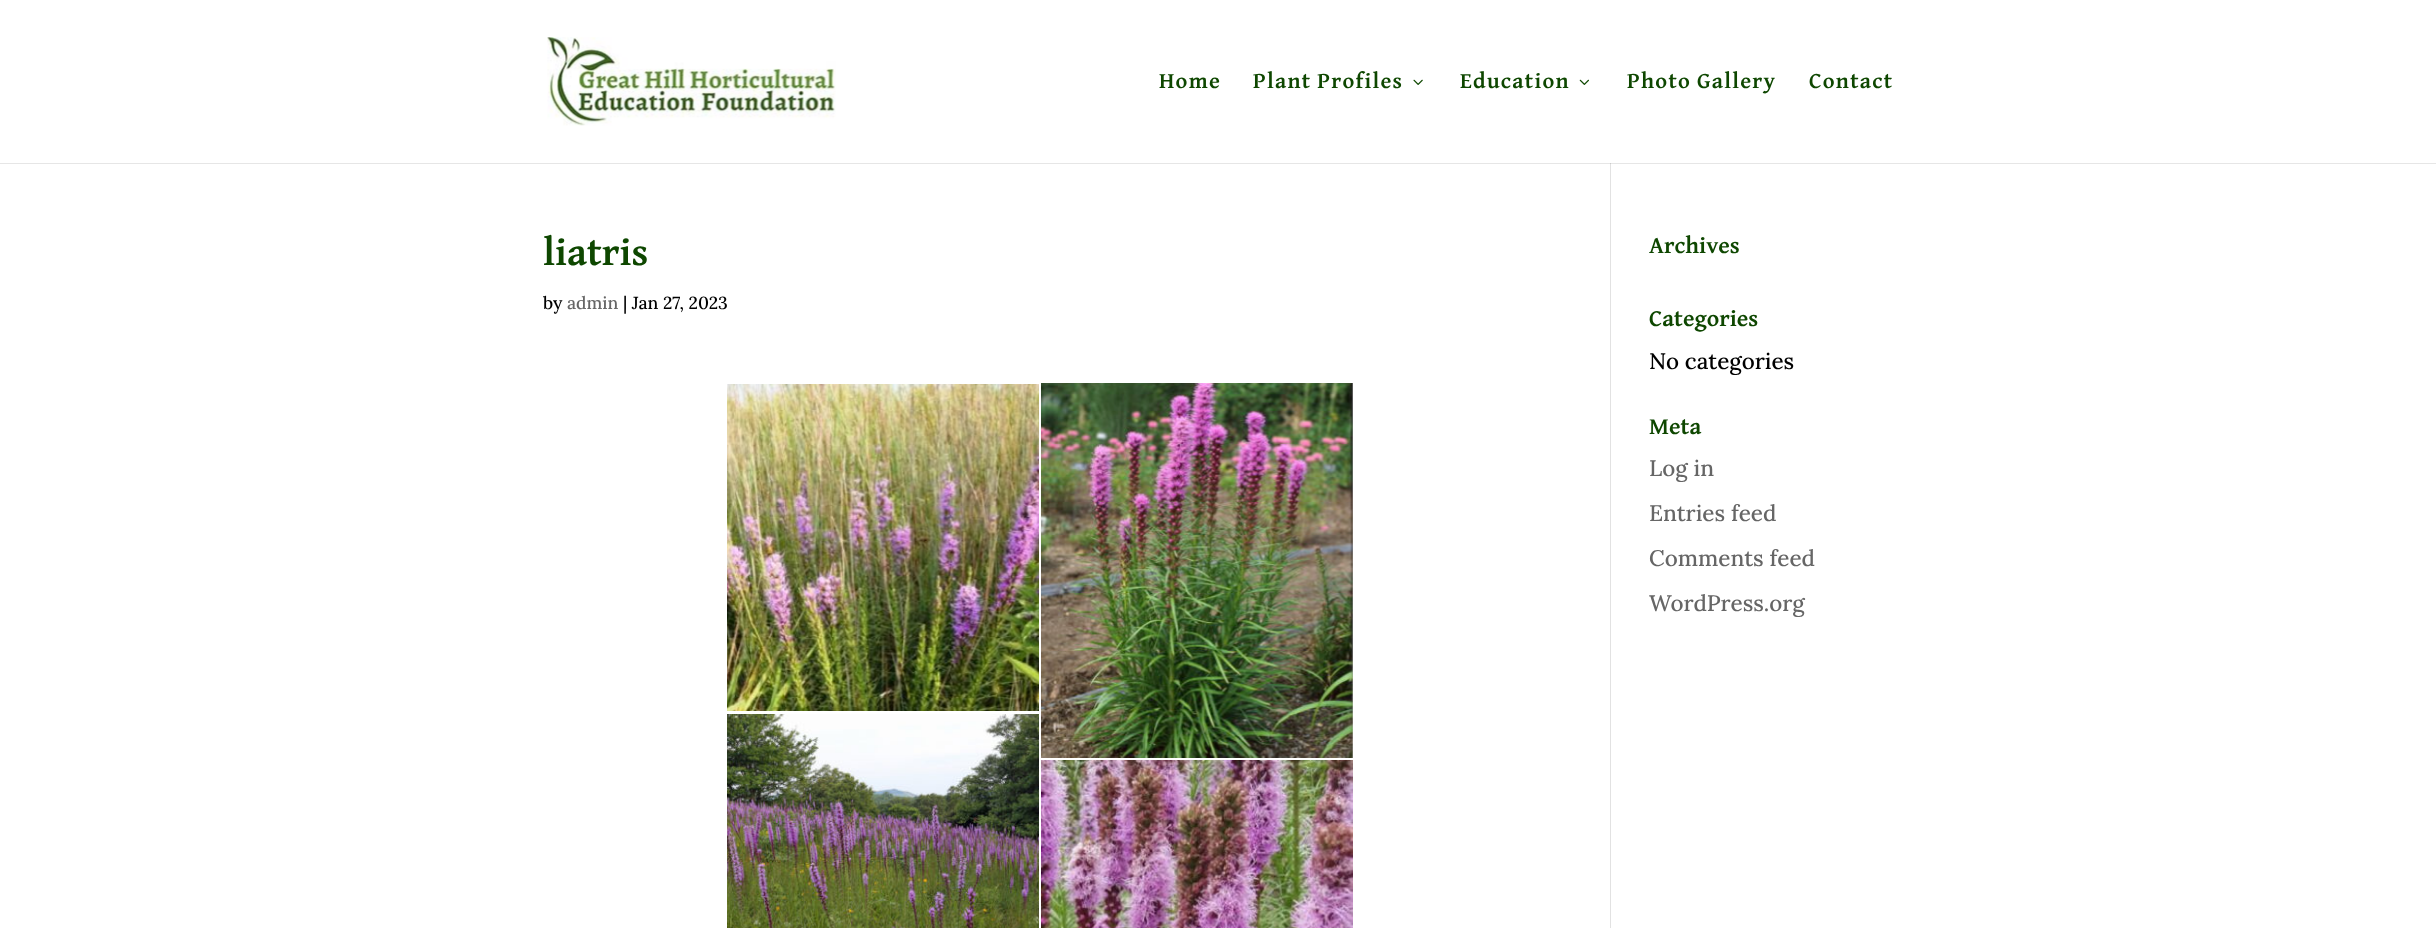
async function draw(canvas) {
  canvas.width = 2436;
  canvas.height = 928;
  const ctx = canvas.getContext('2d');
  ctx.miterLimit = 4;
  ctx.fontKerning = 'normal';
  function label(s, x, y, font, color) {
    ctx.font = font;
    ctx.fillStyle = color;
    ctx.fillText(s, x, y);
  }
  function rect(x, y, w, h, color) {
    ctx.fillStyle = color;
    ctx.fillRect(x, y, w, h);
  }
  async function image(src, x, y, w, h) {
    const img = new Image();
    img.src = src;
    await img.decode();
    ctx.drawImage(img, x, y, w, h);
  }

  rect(0, 0, 2436, 928, '#fff');
  rect(0, 163, 2436, 1, '#e6e6e6');
  rect(1610, 161, 1, 767, '#e2e2e2');
  rect(1610, 162, 1, 2, '#cbcbcb');
  rect(1610, 161, 1, 2, '#fff');
  await image('assets/img1.png', 547, 37, 289, 89);
  ctx.letterSpacing = '1.25px';
  label('Home', 1159, 88, 'bold 22.5px David Libre', '#0e4700');
  label('Plant Profiles', 1253, 88, 'bold 22.5px David Libre', '#0e4700');
  await image('assets/img2.png', 1413, 79, 10, 6);
  label('Education', 1460, 88, 'bold 22.5px David Libre', '#0e4700');
  await image('assets/img3.png', 1579, 79, 10, 6);
  label('Photo Gallery', 1627, 88, 'bold 22.5px David Libre', '#0e4700');
  label('Contact', 1809, 88, 'bold 22.5px David Libre', '#0e4700');
  ctx.letterSpacing = '0px';
  label('liatris', 543, 265, 'bold 40px David Libre', '#0e4700');
  label('by', 543, 309, '500 17.5px Lora', '#000');
  label('admin', 567, 309, '500 17.5px Lora', '#666');
  label('| Jan 27, 2023', 623, 309, '500 17.5px Lora', '#000');
  await image('assets/img4.png', 727, 384, 312, 327);
  await image('assets/img5.png', 1041, 383, 312, 375);
  await image('assets/img6.png', 727, 714, 312, 214);
  await image('assets/img7.png', 1041, 760, 312, 168);
  label('Archives', 1649, 253, 'bold 23.75px David Libre', '#0e4700');
  label('Categories', 1649, 326, 'bold 23.75px David Libre', '#0e4700');
  label('No categories', 1649, 369, '500 22.5px Lora', '#000');
  label('Meta', 1649, 434, 'bold 23.75px David Libre', '#0e4700');
  label('Log in', 1649, 476, '500 22.5px Lora', '#666');
  label('Entries feed', 1649, 521, '500 22.5px Lora', '#666');
  label('Comments feed', 1649, 566, '500 22.5px Lora', '#666');
  label('WordPress.org', 1649, 611, '500 22.5px Lora', '#666');
}

draw(document.querySelector('canvas'));
